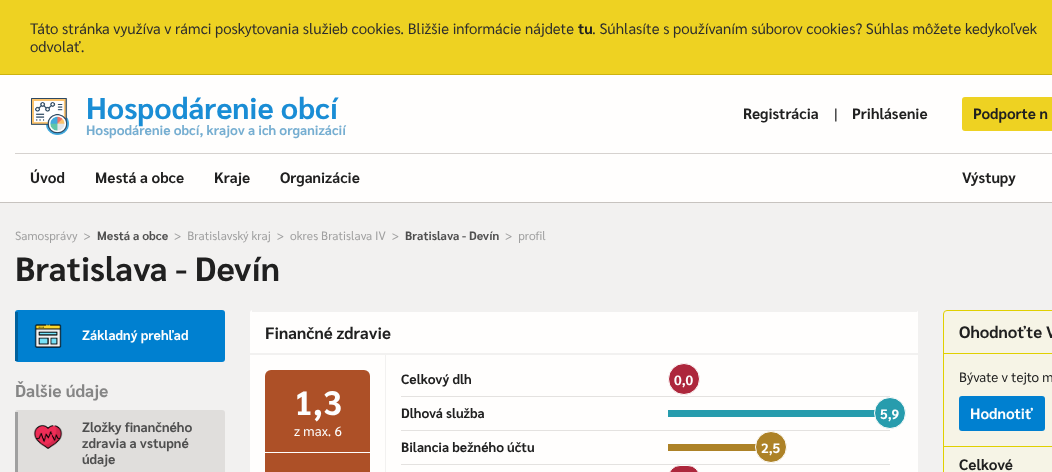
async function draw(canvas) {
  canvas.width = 1052;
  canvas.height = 472;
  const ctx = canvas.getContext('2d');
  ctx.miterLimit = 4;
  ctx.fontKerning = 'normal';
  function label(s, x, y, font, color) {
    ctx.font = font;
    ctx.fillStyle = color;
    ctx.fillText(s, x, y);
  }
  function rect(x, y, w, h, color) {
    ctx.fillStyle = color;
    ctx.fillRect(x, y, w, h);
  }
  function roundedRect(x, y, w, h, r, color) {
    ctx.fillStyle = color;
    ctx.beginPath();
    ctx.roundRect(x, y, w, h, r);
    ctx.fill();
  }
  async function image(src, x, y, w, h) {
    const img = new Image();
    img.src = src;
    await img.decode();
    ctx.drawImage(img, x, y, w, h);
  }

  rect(0, 0, 1052, 472, '#eed222');
  rect(0, 74, 1052, 1, '#cdb310');
  label('Táto stránka využíva v rámci poskytovania služieb cookies. Bližšie informácie nájdete', 30, 34, '15px Sarabun', '#2d2d2d');
  label('tu', 578, 34, 'bold 15px Sarabun', '#202020');
  label('. Súhlasíte s používaním súborov cookies? Súhlas môžete kedykoľvek', 592, 34, '15px Sarabun', '#2d2d2d');
  label('odvolať.', 30, 52, '15px Sarabun', '#2d2d2d');
  rect(0, 75, 1052, 127, '#fffefd');
  rect(0, 202, 1052, 1, '#c7c3bf');
  rect(15, 153, 1037, 1, '#d6d2cf');
  await image('assets/img1.png', 31, 98, 38, 37);
  label('Hospodárenie obcí', 86, 119, 'bold 30px Sarabun', '#1a8dd5');
  label('Hospodárenie obcí, krajov a ich organizácií', 86, 135, 'bold 13.5px Sarabun', '#76aed1');
  label('Registrácia', 743, 119, 'bold 15px Sarabun', '#202020');
  label('|', 834, 119, '15px Sarabun', '#202020');
  label('Prihlásenie', 852, 119, 'bold 15px Sarabun', '#202020');
  roundedRect(962, 97, 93, 34, 3, '#eed222');
  label('Podporte n', 973, 119, 'bold 15px Sarabun', '#202020');
  label('Úvod', 30, 183, 'bold 15px Sarabun', '#202020');
  label('Mestá a obce', 95, 183, 'bold 15px Sarabun', '#202020');
  label('Kraje', 214, 183, 'bold 15px Sarabun', '#202020');
  label('Organizácie', 280, 183, 'bold 15px Sarabun', '#202020');
  label('Výstupy', 962, 183, 'bold 15px Sarabun', '#202020');
  rect(0, 203, 1052, 269, '#f2f1f0');
  label('Samosprávy >', 15, 240, '12px Sarabun', '#a0a0a0');
  label('Mestá a obce', 97, 240, 'bold 12px Sarabun', '#4f4f4f');
  label('> Bratislavský kraj > okres Bratislava IV >', 174, 240, '12px Sarabun', '#a0a0a0');
  label('Bratislava - Devín', 405, 240, 'bold 12px Sarabun', '#4f4f4f');
  label('> profil', 505, 240, '12px Sarabun', '#a0a0a0');
  label('Bratislava - Devín', 15, 281, 'bold 33.75px Sarabun', '#202020');
  roundedRect(15, 310, 210, 52, 3, '#0080d0');
  rect(15, 312, 3, 49, '#00619d');
  await image('assets/img2.png', 34, 324, 28, 24);
  label('Základný prehľad', 82, 340, 'bold 13.5px Sarabun', '#fdfefe');
  label('Ďalšie údaje', 15, 397, 'bold 17.25px Sarabun', '#868686');
  roundedRect(15, 410, 210, 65, 3, '#e0dedc');
  rect(15, 412, 3, 60, '#a0a0a0');
  await image('assets/img3.png', 33, 424, 30, 25);
  label('Zložky finančného', 82, 432, 'bold 13.5px Sarabun', '#4f4f4f');
  label('zdravia a vstupné', 82, 448, 'bold 13.5px Sarabun', '#4f4f4f');
  label('údaje', 82, 464, 'bold 13.5px Sarabun', '#4f4f4f');
  roundedRect(250, 310, 668, 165, 3, '#fffefd');
  rect(252, 310, 665, 2, '#f2f1f0');
  label('Finančné zdravie', 265, 339, 'bold 16.5px Sarabun', '#202020');
  rect(250, 353, 668, 2, '#f2f1f0');
  roundedRect(265, 370, 105, 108, 6, '#ad5027');
  label('1,3', 294, 415, 'bold 33.75px Sarabun', '#fdfefe');
  label('z max. 6', 294, 436, '13.5px Sarabun', '#fdfefe');
  rect(265, 452, 105, 1, '#fffefd');
  rect(385, 355, 1, 117, '#f2f1f0');
  rect(401, 396, 489, 1, '#e4e2e0');
  label('Celkový dlh', 401, 384, 'bold 13.5px Sarabun', '#202020');
  ctx.fillStyle = '#ad273c';
  ctx.beginPath();
  ctx.arc(684, 379, 15.5, 0, 2 * Math.PI);
  ctx.fill();
  ctx.strokeStyle = '#fffefd';
  ctx.stroke();
  label('0,0', 674, 385, 'bold 13.5px Sarabun', '#fdfefe');
  rect(401, 430, 489, 1, '#e4e2e0');
  label('Dlhová služba', 401, 418, 'bold 13.5px Sarabun', '#202020');
  rect(668, 410, 207, 7, '#279cad');
  ctx.beginPath();
  ctx.arc(890, 413, 15.5, 0, 2 * Math.PI);
  ctx.fill();
  ctx.stroke();
  label('5,9', 880, 419, 'bold 13.5px Sarabun', '#fdfefe');
  rect(401, 464, 489, 1, '#e4e2e0');
  label('Bilancia bežného účtu', 401, 452, 'bold 13.5px Sarabun', '#202020');
  rect(668, 444, 92, 7, '#ad8227');
  ctx.beginPath();
  ctx.arc(771, 447, 15.5, 0, 2 * Math.PI);
  ctx.fill();
  ctx.stroke();
  label('2,5', 761, 453, 'bold 13.5px Sarabun', '#fdfefe');
  ctx.fillStyle = '#ad273c';
  ctx.beginPath();
  ctx.roundRect(668.5, 465.5, 31, 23, 15.5);
  ctx.fill();
  ctx.stroke();
  ctx.fillStyle = '#f6f4e6';
  ctx.beginPath();
  ctx.roundRect(943.5, 310.5, 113, 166, 3.5);
  ctx.fill();
  ctx.strokeStyle = '#e0d000';
  ctx.stroke();
  label('Ohodnoťte V', 959, 338, 'bold 16.5px Sarabun', '#202020');
  rect(944, 353, 108, 1, '#e0d000');
  label('Bývate v tejto m', 959, 382, '13.5px Sarabun', '#202020');
  roundedRect(959, 396, 86, 35, 3, '#0080d0');
  label('Hodnotiť', 970, 419, 'bold 15px Sarabun', '#fdfefe');
  rect(944, 446, 108, 1, '#e0d000');
  label('Celkové', 959, 470, 'bold 15px Sarabun', '#202020');
}

draw(document.querySelector('canvas'));
